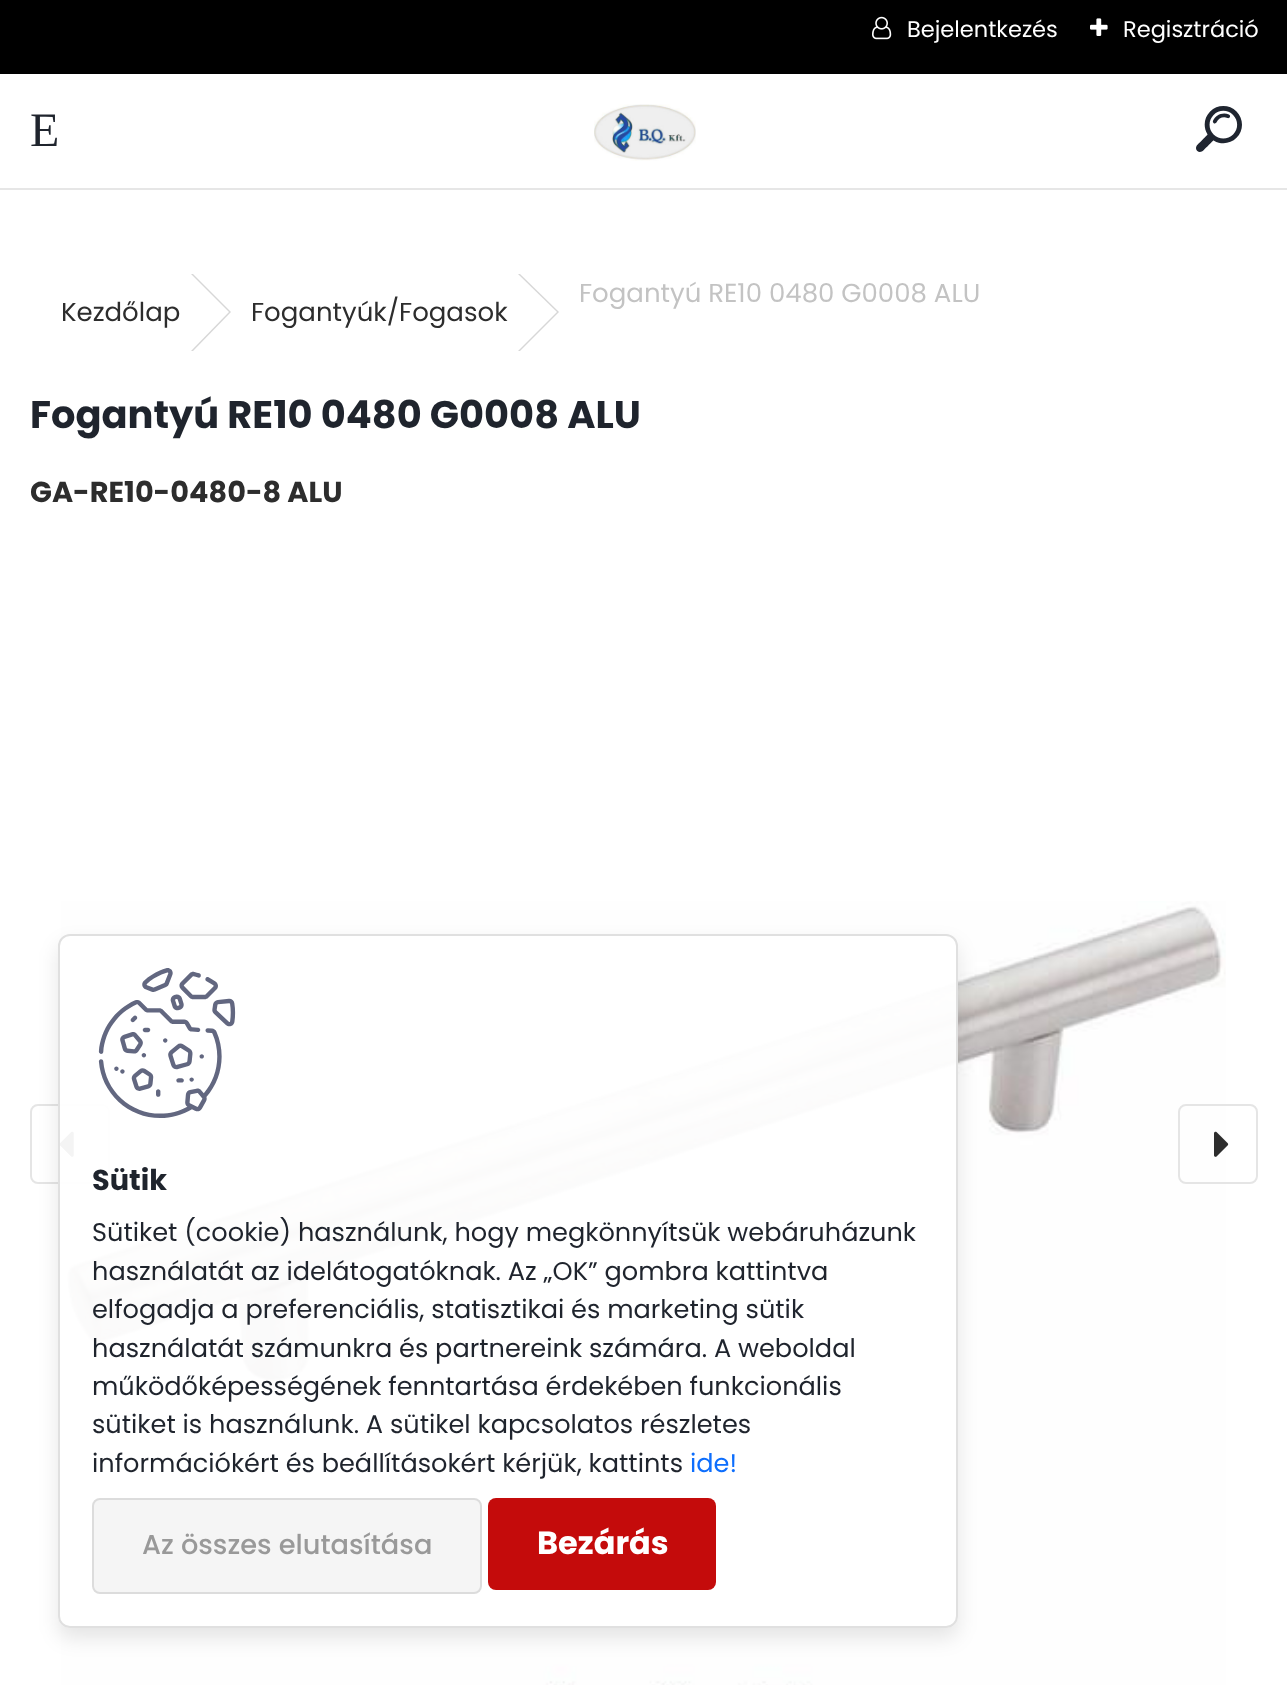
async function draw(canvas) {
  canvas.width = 1287;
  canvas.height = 1685;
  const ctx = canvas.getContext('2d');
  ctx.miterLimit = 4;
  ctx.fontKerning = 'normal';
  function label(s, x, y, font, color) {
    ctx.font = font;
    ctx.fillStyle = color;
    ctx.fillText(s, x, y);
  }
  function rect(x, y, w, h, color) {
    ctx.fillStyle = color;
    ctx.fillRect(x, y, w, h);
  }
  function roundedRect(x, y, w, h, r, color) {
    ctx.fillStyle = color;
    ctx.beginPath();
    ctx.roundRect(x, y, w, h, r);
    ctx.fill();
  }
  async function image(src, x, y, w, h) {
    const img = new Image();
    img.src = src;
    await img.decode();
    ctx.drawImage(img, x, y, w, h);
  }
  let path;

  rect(0, 0, 1287, 1685, '#fff');
  rect(0, 0, 1287, 74, '#000');
  await image('assets/img1.png', 872, 16, 20, 24);
  label('Bejelentkezés', 907, 37, '22.5px Poppins', '#fff');
  await image('assets/img2.png', 1090, 18, 18, 18);
  label('Regisztráció', 1123, 37, '22.5px Poppins', '#fff');
  rect(0, 188, 1287, 2, '#e6e6e6');
  label('E', 30, 146, '48px Liberation Serif', '#1f242d');
  await image('assets/img3.png', 594, 104, 102, 57);
  await image('assets/img4.png', 1196, 106, 46, 46);
  label('Kezdőlap', 61, 321, '26px Poppins', '#2d2d2d');
  ctx.fillStyle = '#d7d7d7';
  path = new Path2D('M191 274H193L231 312H229Z');
  ctx.fill(path);
  path = new Path2D('M229 312H231L193 351H191Z');
  ctx.fill(path);
  label('Fogantyúk/Fogasok', 251, 321, '26px Poppins', '#2d2d2d');
  ctx.fillStyle = '#d7d7d7';
  path = new Path2D('M518 274H520L559 312H557Z');
  ctx.fill(path);
  path = new Path2D('M557 312H559L520 351H518Z');
  ctx.fill(path);
  label('Fogantyú RE10 0480 G0008 ALU', 579, 302, '26px Poppins', '#c3c3c3');
  label('Fogantyú RE10 0480 G0008 ALU', 30, 428, 'bold 38.4px Poppins', '#1f242d');
  label('GA-RE10-0480-8 ALU', 30, 502, 'bold 28.75px Poppins', '#2d2d2d');
  await image('assets/img5.png', 61, 901, 1165, 784);
  ctx.beginPath();
  ctx.roundRect(31, 1105, 78, 78, 7);
  ctx.strokeStyle = '#e5e5e5';
  ctx.lineWidth = 2;
  ctx.stroke();
  await image('assets/img6.png', 60, 1131, 14, 26);
  ctx.beginPath();
  ctx.roundRect(1179, 1105, 78, 78, 7);
  ctx.stroke();
  await image('assets/img7.png', 1214, 1131, 15, 26);
  ctx.save();
  path = new Path2D('M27 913H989V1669H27ZM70 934H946C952.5 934 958 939.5 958 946V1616C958 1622.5 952.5 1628 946 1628H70C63.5 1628 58 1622.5 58 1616V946C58 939.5 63.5 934 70 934Z');
  ctx.clip(path, 'evenodd');
  ctx.fillStyle = '#0000001a';
  ctx.filter = 'blur(10px)';
  ctx.beginPath();
  ctx.roundRect(58, 944, 900, 694, 12);
  ctx.fill();
  ctx.filter = 'none';
  ctx.restore();
  ctx.fillStyle = '#fffffff2';
  ctx.beginPath();
  ctx.roundRect(59, 935, 898, 692, 11);
  ctx.fill();
  ctx.strokeStyle = '#e0e0e0';
  ctx.stroke();
  await image('assets/img8.png', 98, 968, 138, 150);
  label('Sütik', 92, 1190, 'bold 28.75px Poppins', '#1f242d');
  label('Sütiket (cookie) használunk, hogy megkönnyítsük webáruházunk', 92, 1241, '25.6px Poppins', '#1f242d');
  label('használatát az idelátogatóknak. Az „OK” gombra kattintva', 92, 1280, '25.6px Poppins', '#1f242d');
  label('elfogadja a preferenciális, statisztikai és marketing sütik', 92, 1318, '25.6px Poppins', '#1f242d');
  label('használatát számunkra és partnereink számára. A weboldal', 92, 1357, '25.6px Poppins', '#1f242d');
  label('működőképességének fenntartása érdekében funkcionális', 92, 1395, '25.6px Poppins', '#1f242d');
  label('sütiket is használunk. A sütikel kapcsolatos részletes', 92, 1433, '25.6px Poppins', '#1f242d');
  label('információkért és beállításokért kérjük, kattints', 92, 1472, '25.6px Poppins', '#1f242d');
  label('ide!', 690, 1472, '25.6px Poppins', '#0d6efd');
  roundedRect(92, 1498, 390, 96, 8, '#f5f5f5');
  ctx.beginPath();
  ctx.roundRect(93, 1499, 388, 94, 7);
  ctx.strokeStyle = '#0000001a';
  ctx.stroke();
  label('Az összes elutasítása', 142, 1554, '500 27.25px Poppins', '#999');
  roundedRect(488, 1498, 228, 92, 8, '#c40b0b');
  label('Bezárás', 537, 1554, 'bold 32px Poppins', '#fff');
}

draw(document.querySelector('canvas'));
